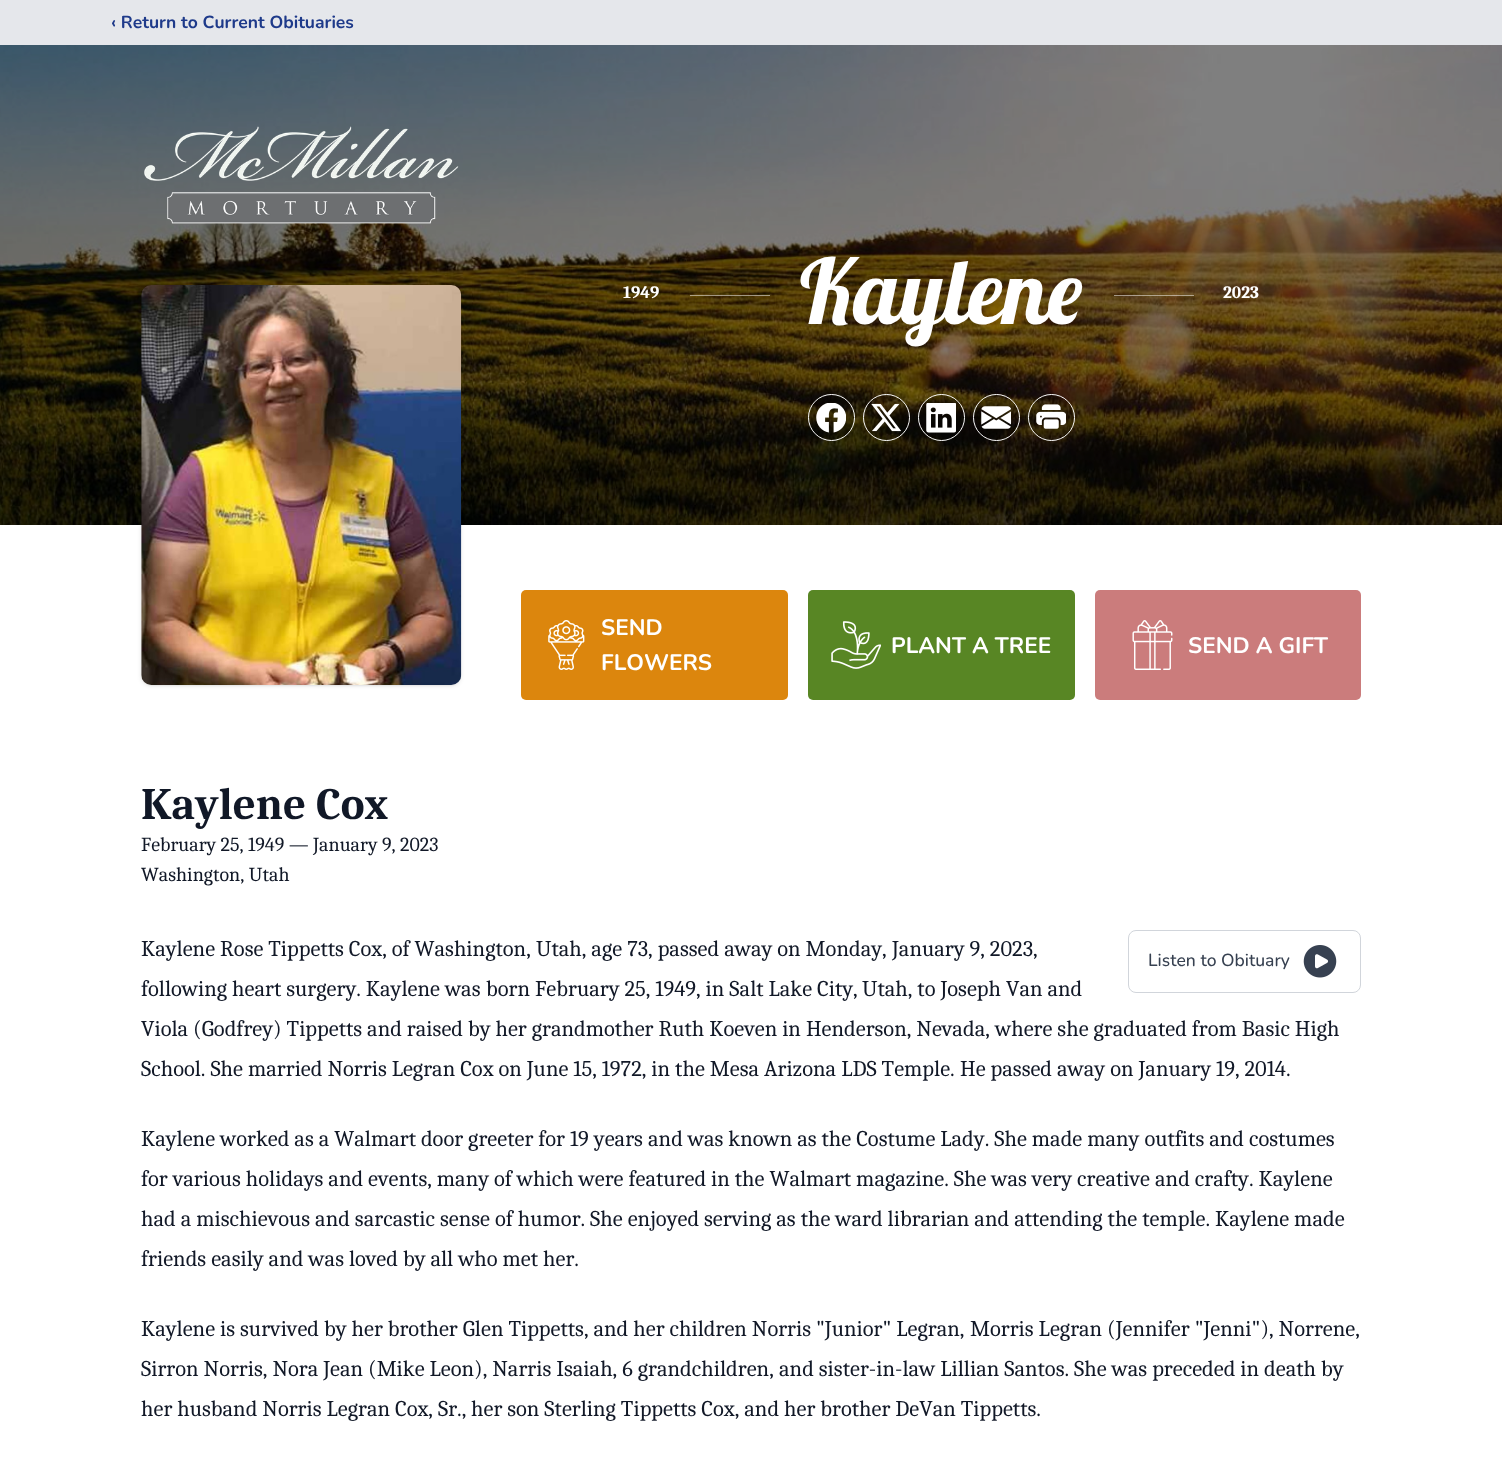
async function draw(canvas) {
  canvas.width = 1502;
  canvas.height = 1461;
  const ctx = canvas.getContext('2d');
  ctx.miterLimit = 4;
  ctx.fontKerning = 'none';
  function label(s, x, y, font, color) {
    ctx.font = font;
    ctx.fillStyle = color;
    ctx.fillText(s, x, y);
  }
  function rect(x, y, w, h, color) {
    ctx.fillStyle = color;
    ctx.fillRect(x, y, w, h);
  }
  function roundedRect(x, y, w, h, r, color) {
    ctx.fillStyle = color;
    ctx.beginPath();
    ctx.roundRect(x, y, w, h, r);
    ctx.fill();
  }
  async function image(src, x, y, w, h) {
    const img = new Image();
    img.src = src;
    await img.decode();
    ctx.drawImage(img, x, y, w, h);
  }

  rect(0, 0, 1502, 1461, '#fff');
  rect(0, 0, 1502, 45, '#e5e7eb');
  label('‹ Return to Current Obituaries', 111, 28, 'bold 17.5px Nunito', '#1e3a8a');
  await image('assets/img1.png', 0, 45, 1502, 480);
  await image('assets/img2.png', 144, 126, 315, 98);
  ctx.fillStyle = '#0000001a';
  ctx.filter = 'blur(1px)';
  ctx.beginPath();
  ctx.roundRect(143, 288, 317, 397, 9);
  ctx.fill();
  ctx.filter = 'none';
  ctx.filter = 'blur(2px)';
  ctx.beginPath();
  ctx.roundRect(141, 286, 320, 400, 10);
  ctx.fill();
  ctx.filter = 'none';
  await image('assets/img3.png', 141, 285, 321, 400);
  label('1949', 623, 298, 'bold 17.5px Caladea', '#fff');
  rect(690, 295, 80, 1, '#ffffff80');
  label('Kaylene', 800, 324, '90px Lobster', '#fff');
  rect(1114, 295, 80, 1, '#ffffff80');
  label('2023', 1223, 298, 'bold 17.5px Caladea', '#fff');
  ctx.beginPath();
  ctx.arc(831.5, 417.5, 23, 0, 2 * Math.PI);
  ctx.strokeStyle = '#fff';
  ctx.stroke();
  ctx.fillStyle = '#00000033';
  ctx.beginPath();
  ctx.arc(831.5, 417.5, 22.5, 0, 2 * Math.PI);
  ctx.fill();
  await image('assets/img4.png', 816, 403, 30, 30);
  ctx.beginPath();
  ctx.arc(886.5, 417.5, 23, 0, 2 * Math.PI);
  ctx.stroke();
  ctx.beginPath();
  ctx.arc(886.5, 417.5, 22.5, 0, 2 * Math.PI);
  ctx.fill();
  await image('assets/img5.png', 871, 403, 30, 29);
  ctx.beginPath();
  ctx.arc(941.5, 417.5, 23, 0, 2 * Math.PI);
  ctx.stroke();
  ctx.beginPath();
  ctx.arc(941.5, 417.5, 22.5, 0, 2 * Math.PI);
  ctx.fill();
  await image('assets/img6.png', 926, 403, 30, 30);
  ctx.beginPath();
  ctx.arc(996.5, 417.5, 23, 0, 2 * Math.PI);
  ctx.stroke();
  ctx.beginPath();
  ctx.arc(996.5, 417.5, 22.5, 0, 2 * Math.PI);
  ctx.fill();
  await image('assets/img7.png', 981, 406, 30, 23);
  ctx.beginPath();
  ctx.arc(1051.5, 417.5, 23, 0, 2 * Math.PI);
  ctx.stroke();
  ctx.beginPath();
  ctx.arc(1051.5, 417.5, 22.5, 0, 2 * Math.PI);
  ctx.fill();
  await image('assets/img8.png', 1036, 404, 30, 25);
  roundedRect(521, 590, 267, 110, 5, '#dc860d');
  await image('assets/img9.png', 548, 620, 37, 50);
  label('SEND', 601, 635, 'bold 22.5px Nunito', '#fff');
  label('FLOWERS', 601, 670, 'bold 22.5px Nunito', '#fff');
  roundedRect(808, 590, 267, 110, 5, '#588624');
  await image('assets/img10.png', 831, 621, 50, 48);
  label('PLANT A TREE', 891, 653, 'bold 22.5px Nunito', '#fff');
  roundedRect(1095, 590, 266, 110, 5, '#cb7c7c');
  await image('assets/img11.png', 1132, 620, 41, 50);
  label('SEND A GIFT', 1188, 653, 'bold 22.5px Nunito', '#fff');
  label('Kaylene Cox', 141, 819, 'bold 45px Caladea', '#111827');
  label('February 25, 1949 — January 9, 2023', 141, 851, '20px Caladea', '#111827');
  label('Washington, Utah', 141, 881, '20px Caladea', '#111827');
  label('Kaylene Rose Tippetts Cox, of Washington,', 141, 956, '22.5px Caladea', '#111827');
  label('Utah, age 73, passed away on Monday,', 536, 956, '22.5px Caladea', '#111827');
  label('January 9, 2023,', 892, 956, '22.5px Caladea', '#111827');
  label('following heart surgery. Kaylene was', 141, 996, '22.5px Caladea', '#111827');
  label('born February 25, 1949, in Salt Lake City,', 486, 996, '22.5px Caladea', '#111827');
  label('Utah, to Joseph Van and', 862, 996, '22.5px Caladea', '#111827');
  label('Viola (Godfrey) Tippetts and raised by her grandmother Ruth Koeven in Henderson, Nevada,', 141, 1036, '22.5px Caladea', '#111827');
  label('where she graduated from Basic High', 995, 1036, '22.5px Caladea', '#111827');
  label('School. She married Norris Legran Cox on June 15, 1972, in the Mesa Arizona LDS Temple.', 141, 1076, '22.5px Caladea', '#111827');
  label('He passed away on January 19, 2014.', 960, 1076, '22.5px Caladea', '#111827');
  label('Kaylene worked as a Walmart door greeter for 19 years', 141, 1146, '22.5px Caladea', '#111827');
  label('and was known as the Costume Lady. She made many outfits and costumes', 648, 1146, '22.5px Caladea', '#111827');
  label('for various holidays and events, many of which were featured', 141, 1186, '22.5px Caladea', '#111827');
  label('in the Walmart magazine. She was very creative', 711, 1186, '22.5px Caladea', '#111827');
  label('and crafty. Kaylene', 1155, 1186, '22.5px Caladea', '#111827');
  label('had a mischievous and sarcastic sense of humor. She enjoyed', 141, 1226, '22.5px Caladea', '#111827');
  label('serving as the ward librarian and attending the temple. Kaylene made', 704, 1226, '22.5px Caladea', '#111827');
  label('friends easily and was loved by all who met her.', 141, 1266, '22.5px Caladea', '#111827');
  label('Kaylene is survived by her brother Glen Tippetts, and her children Norris "Junior" Legran,', 141, 1336, '22.5px Caladea', '#111827');
  label('Morris Legran (Jennifer "Jenni"), Norrene,', 970, 1336, '22.5px Caladea', '#111827');
  label('Sirron Norris, Nora Jean (Mike Leon), Narris Isaiah, 6 grandchildren,', 141, 1376, '22.5px Caladea', '#111827');
  label('and sister-in-law Lillian Santos. She was preceded in death by', 779, 1376, '22.5px Caladea', '#111827');
  label('her husband Norris Legran Cox, Sr.,', 141, 1416, '22.5px Caladea', '#111827');
  label('her son Sterling Tippetts Cox, and her brother DeVan Tippetts.', 471, 1416, '22.5px Caladea', '#111827');
  ctx.beginPath();
  ctx.roundRect(1128.5, 930.5, 232, 62, 7.5);
  ctx.strokeStyle = '#d1d5db';
  ctx.stroke();
  label('Listen to Obituary', 1148, 966, '500 17.5px Nunito', '#374151');
  await image('assets/img12.png', 1303, 945, 34, 33);
}

draw(document.querySelector('canvas'));
